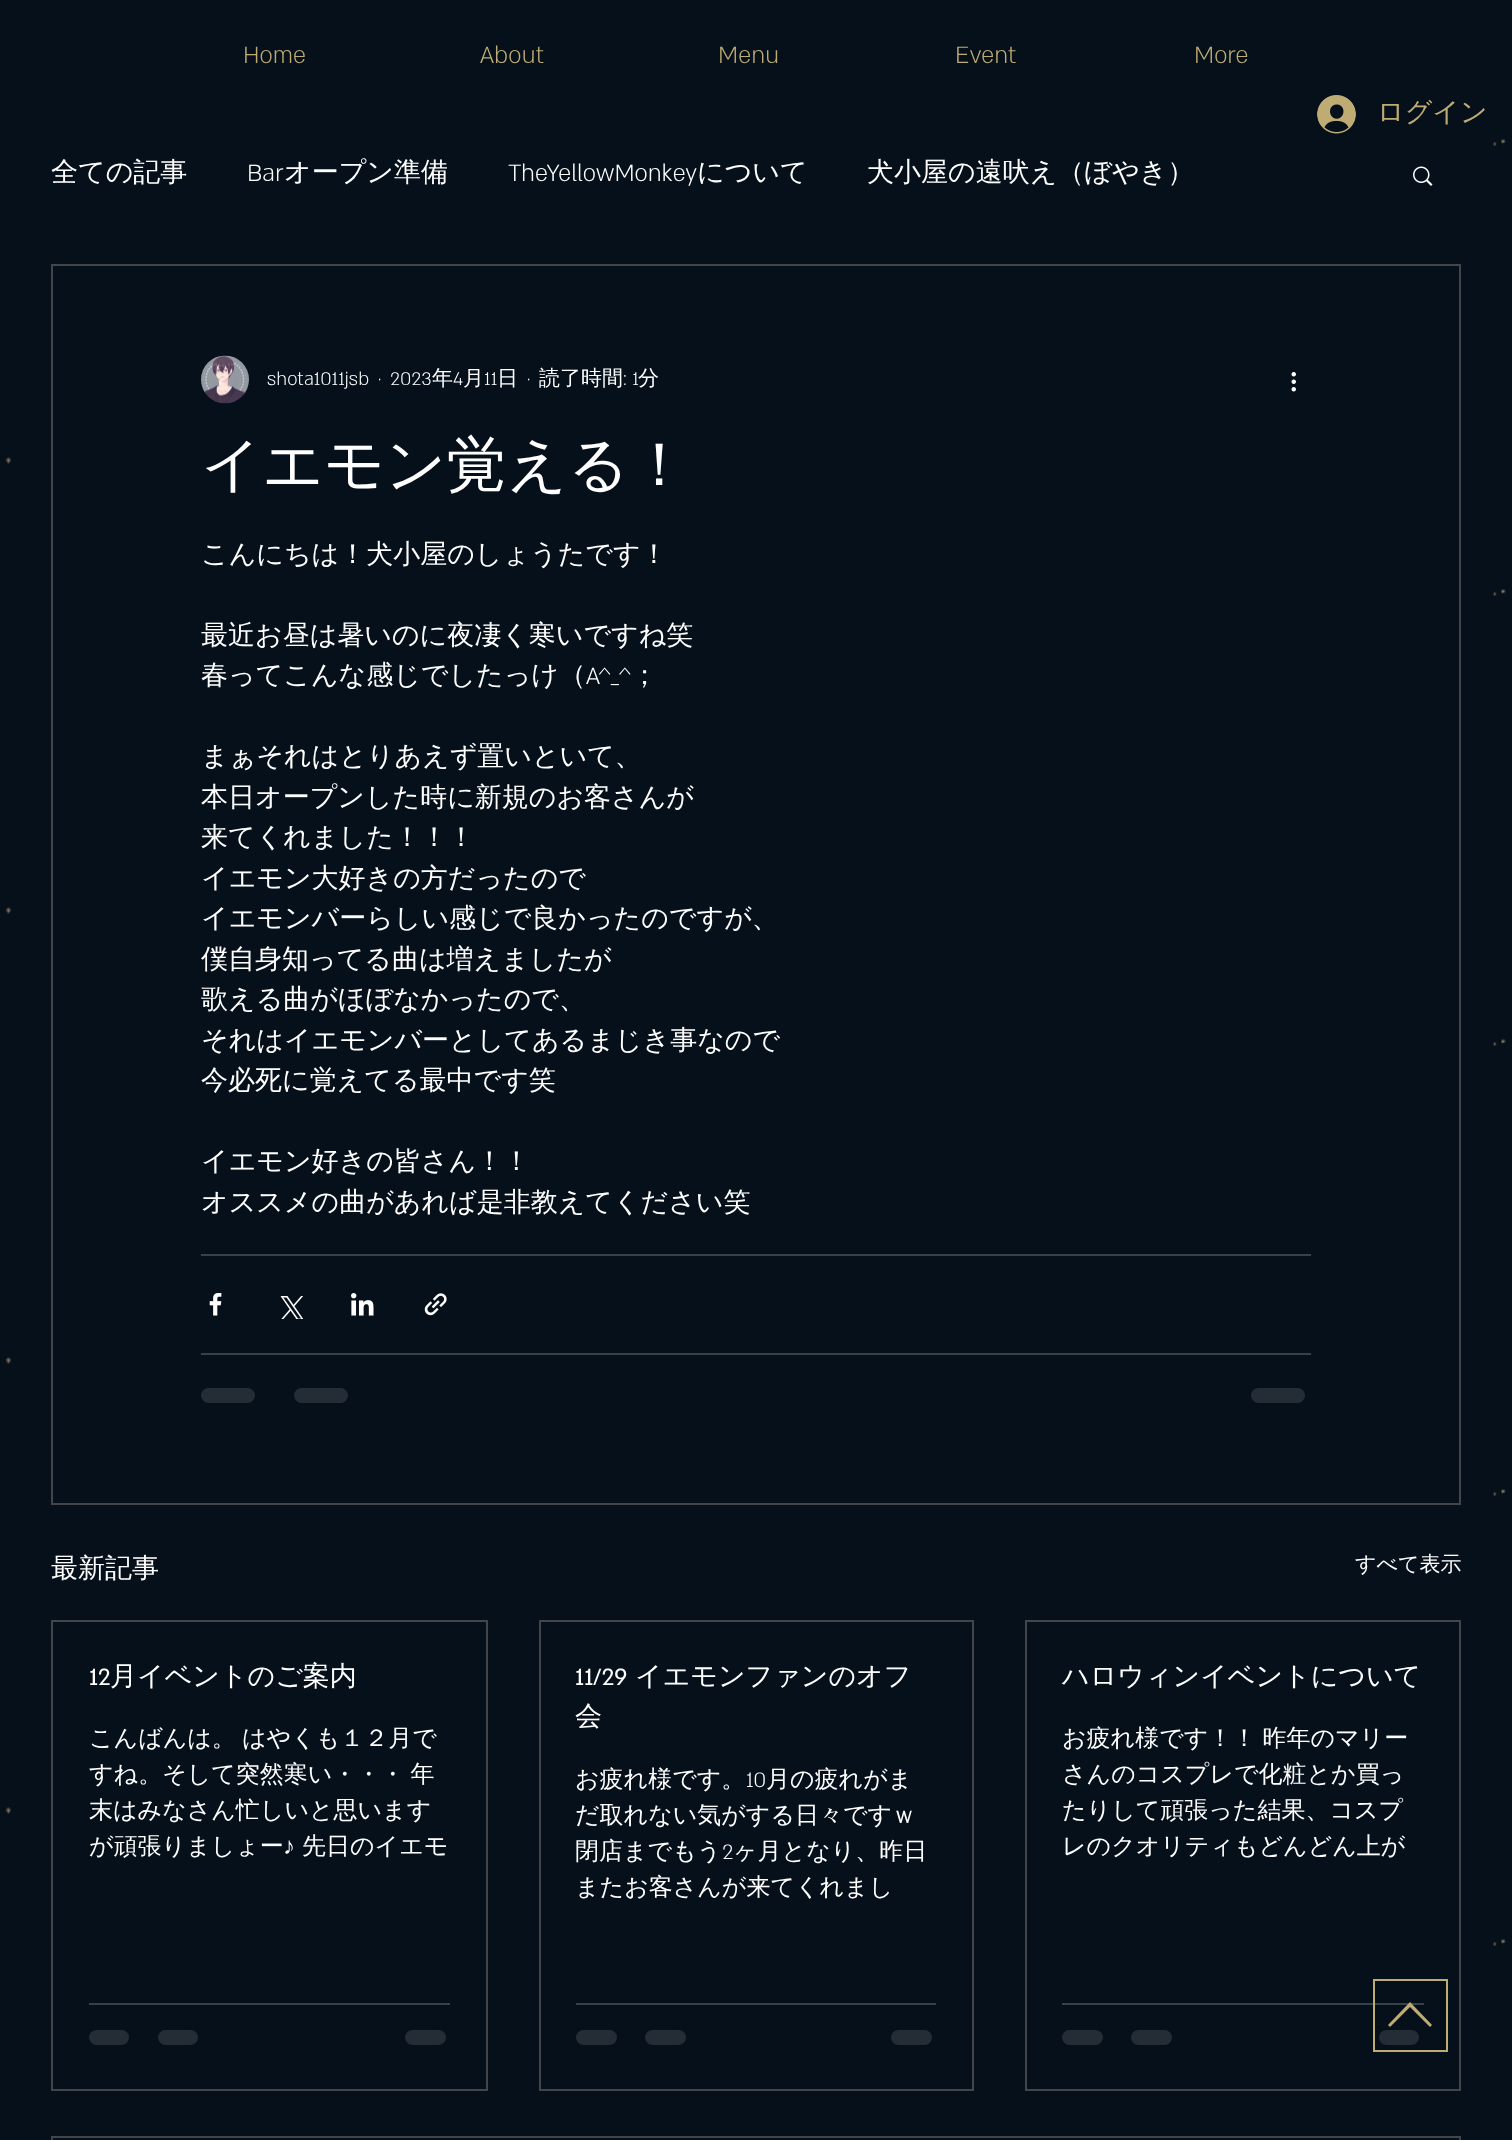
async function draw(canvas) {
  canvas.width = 1512;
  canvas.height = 2140;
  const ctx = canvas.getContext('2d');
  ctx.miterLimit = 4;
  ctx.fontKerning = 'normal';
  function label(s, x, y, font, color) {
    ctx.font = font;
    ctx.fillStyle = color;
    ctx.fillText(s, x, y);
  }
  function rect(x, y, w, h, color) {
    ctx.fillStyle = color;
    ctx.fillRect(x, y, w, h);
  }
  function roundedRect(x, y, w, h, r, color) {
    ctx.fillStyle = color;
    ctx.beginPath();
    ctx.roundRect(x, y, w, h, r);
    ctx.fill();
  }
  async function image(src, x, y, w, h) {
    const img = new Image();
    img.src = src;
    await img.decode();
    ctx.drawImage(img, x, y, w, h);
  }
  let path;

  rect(0, 0, 1512, 2140, '#06101b');
  label('Home', 243, 63, '300 27px "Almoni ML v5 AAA"', '#beac74');
  label('About', 480, 63, '300 27px "Almoni ML v5 AAA"', '#beac74');
  label('Menu', 718, 63, '300 27px "Almoni ML v5 AAA"', '#beac74');
  label('Event', 955, 63, '300 27px "Almoni ML v5 AAA"', '#beac74');
  label('More', 1194, 63, '300 27px "Almoni ML v5 AAA"', '#beac74');
  await image('assets/img1.png', 1317, 95, 39, 39);
  label('ログイン', 1377, 121, '500 27px WenQuanYi Zen Hei', '#beac74');
  await image('assets/img9.png', 5, 139, 1501, 1807);
  rect(89, 139, 1355, 1807, '#06101b');
  label('全ての記事', 51, 181, '500 27px WenQuanYi Zen Hei', '#fff');
  label('Bar', 247, 181, '300 27px "Almoni ML v5 AAA"', '#fff');
  label('オープン準備', 284, 181, '500 27px WenQuanYi Zen Hei', '#fff');
  label('TheYellowMonkey', 508, 181, '300 27px "Almoni ML v5 AAA"', '#fff');
  label('について', 697, 181, '500 27px WenQuanYi Zen Hei', '#fff');
  label('犬小屋の遠吠え（ぼやき）', 867, 181, '500 27px WenQuanYi Zen Hei', '#fff');
  await image('assets/img2.png', 1413, 166, 20, 20);
  ctx.strokeStyle = '#434548';
  ctx.lineWidth = 2;
  ctx.strokeRect(52, 265, 1408, 1239);
  await image('assets/img3.png', 201, 355, 48, 49);
  label('shota1011jsb', 267, 385, '300 21px "Almoni ML v5 AAA"', '#fff');
  label('·', 378, 385, '300 21px "Almoni ML v5 AAA"', '#fff');
  label('2023', 390, 385, '300 21px "Almoni ML v5 AAA"', '#fff');
  label('年', 432, 385, '500 21px WenQuanYi Zen Hei', '#fff');
  label('4', 453, 385, '300 21px "Almoni ML v5 AAA"', '#fff');
  label('月', 463, 385, '500 21px WenQuanYi Zen Hei', '#fff');
  label('11', 484, 385, '300 21px "Almoni ML v5 AAA"', '#fff');
  label('日', 497, 385, '500 21px WenQuanYi Zen Hei', '#fff');
  label('·', 527, 385, '300 21px "Almoni ML v5 AAA"', '#fff');
  label('読了時間', 539, 385, '500 21px WenQuanYi Zen Hei', '#fff');
  label(': 1', 623, 385, '300 21px "Almoni ML v5 AAA"', '#fff');
  label('分', 638, 385, '500 21px WenQuanYi Zen Hei', '#fff');
  await image('assets/img4.png', 1291, 372, 5, 20);
  label('イエモン覚える！', 201, 485, '500 60px WenQuanYi Zen Hei', '#fff');
  label('こんにちは！犬小屋のしょうたです！', 201, 563, '500 27px WenQuanYi Zen Hei', '#fff');
  label('最近お昼は暑いのに夜凄く寒いですね笑', 201, 644, '500 27px WenQuanYi Zen Hei', '#fff');
  label('春ってこんな感じでしたっけ（', 201, 684, '500 27px WenQuanYi Zen Hei', '#fff');
  label('A^_^', 586, 684, '300 27px "Almoni ML v5 AAA"', '#fff');
  label('；', 631, 684, '500 27px WenQuanYi Zen Hei', '#fff');
  label('まぁそれはとりあえず置いといて、', 201, 765, '500 27px WenQuanYi Zen Hei', '#fff');
  label('本日オープンした時に新規のお客さんが', 201, 806, '500 27px WenQuanYi Zen Hei', '#fff');
  label('来てくれました！！！', 201, 846, '500 27px WenQuanYi Zen Hei', '#fff');
  label('イエモン大好きの方だったので', 201, 887, '500 27px WenQuanYi Zen Hei', '#fff');
  label('イエモンバーらしい感じで良かったのですが、', 201, 927, '500 27px WenQuanYi Zen Hei', '#fff');
  label('僕自身知ってる曲は増えましたが', 201, 968, '500 27px WenQuanYi Zen Hei', '#fff');
  label('歌える曲がほぼなかったので、', 201, 1008, '500 27px WenQuanYi Zen Hei', '#fff');
  label('それはイエモンバーとしてあるまじき事なので', 201, 1049, '500 27px WenQuanYi Zen Hei', '#fff');
  label('今必死に覚えてる最中です笑', 201, 1089, '500 27px WenQuanYi Zen Hei', '#fff');
  label('イエモン好きの皆さん！！', 201, 1170, '500 27px WenQuanYi Zen Hei', '#fff');
  label('オススメの曲があれば是非教えてください笑', 201, 1211, '500 27px WenQuanYi Zen Hei', '#fff');
  rect(201, 1254, 1110, 2, '#384049');
  await image('assets/img5.png', 209, 1293, 13, 23);
  await image('assets/img6.png', 280, 1296, 23, 23);
  await image('assets/img7.png', 351, 1293, 23, 23);
  await image('assets/img8.png', 424, 1293, 23, 23);
  rect(201, 1353, 1110, 2, '#384049');
  roundedRect(201, 1388, 54, 15, 7.5, '#242d36');
  roundedRect(294, 1388, 54, 15, 7.5, '#242d36');
  roundedRect(1251, 1388, 54, 15, 7.5, '#242d36');
  label('最新記事', 51, 1577, '500 27px WenQuanYi Zen Hei', '#fff');
  label('すべて表示', 1355, 1571, '500 21px WenQuanYi Zen Hei', '#fff');
  ctx.strokeRect(52, 1621, 435, 469);
  label('12', 89, 1685, '27px "Almoni ML v5 AAA"', '#fff');
  label('月イベントのご案内', 110, 1685, '500 27px WenQuanYi Zen Hei', '#fff');
  ctx.wordSpacing = '-1px';
  label('こんばんは。 はやくも１２月で', 89, 1746, '500 24px WenQuanYi Zen Hei', '#fff');
  label('すね。そして突然寒い・・・ 年', 89, 1782, '500 24px WenQuanYi Zen Hei', '#fff');
  ctx.wordSpacing = '0px';
  label('末はみなさん忙しいと思います', 89, 1818, '500 24px WenQuanYi Zen Hei', '#fff');
  label('が頑張りましょー', 89, 1854, '500 24px WenQuanYi Zen Hei', '#fff');
  label('♪', 283, 1854, '24px Liberation Sans', '#fff');
  label('先日のイエモ', 302, 1854, '500 24px WenQuanYi Zen Hei', '#fff');
  rect(89, 2003, 361, 2, '#384049');
  roundedRect(89, 2030, 40, 15, 7.5, '#242d36');
  roundedRect(158, 2030, 40, 15, 7.5, '#242d36');
  roundedRect(405, 2030, 41, 15, 7.5, '#242d36');
  ctx.strokeRect(540, 1621, 433, 469);
  label('11/29', 575, 1685, '27px "Almoni ML v5 AAA"', '#fff');
  label('イエモンファンのオフ', 635, 1685, '500 27px WenQuanYi Zen Hei', '#fff');
  label('会', 575, 1725, '500 27px WenQuanYi Zen Hei', '#fff');
  label('お疲れ様です。', 575, 1787, '500 24px WenQuanYi Zen Hei', '#fff');
  label('10', 746, 1787, '300 24px "Almoni ML v5 AAA"', '#fff');
  label('月の疲れがま', 766, 1787, '500 24px WenQuanYi Zen Hei', '#fff');
  label('だ取れない気がする日々ですｗ', 575, 1823, '500 24px WenQuanYi Zen Hei', '#fff');
  label('閉店までもう', 575, 1859, '500 24px WenQuanYi Zen Hei', '#fff');
  label('2', 722, 1859, '300 24px "Almoni ML v5 AAA"', '#fff');
  label('ヶ月となり、昨日', 733, 1859, '500 24px WenQuanYi Zen Hei', '#fff');
  label('またお客さんが来てくれまし', 575, 1895, '500 24px WenQuanYi Zen Hei', '#fff');
  rect(576, 2003, 360, 2, '#384049');
  roundedRect(576, 2030, 41, 15, 7.5, '#242d36');
  roundedRect(645, 2030, 41, 15, 7.5, '#242d36');
  roundedRect(891, 2030, 41, 15, 7.5, '#242d36');
  ctx.strokeRect(1026, 1621, 434, 469);
  label('ハロウィンイベントについて', 1062, 1685, '500 27px WenQuanYi Zen Hei', '#fff');
  ctx.wordSpacing = '-1px';
  label('お疲れ様です！！ 昨年のマリー', 1062, 1746, '500 24px WenQuanYi Zen Hei', '#fff');
  ctx.wordSpacing = '0px';
  label('さんのコスプレで化粧とか買っ', 1062, 1782, '500 24px WenQuanYi Zen Hei', '#fff');
  label('たりして頑張った結果、コスプ', 1062, 1818, '500 24px WenQuanYi Zen Hei', '#fff');
  label('レのクオリティもどんどん上が', 1062, 1854, '500 24px WenQuanYi Zen Hei', '#fff');
  rect(1062, 2003, 362, 2, '#384049');
  roundedRect(1062, 2030, 41, 15, 7.5, '#242d36');
  roundedRect(1131, 2030, 41, 15, 7.5, '#242d36');
  roundedRect(1379, 2030, 40, 15, 7.5, '#242d36');
  ctx.strokeRect(52, 2137, 1408, 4);
  ctx.strokeStyle = '#beac74';
  ctx.strokeRect(1374, 1980, 73, 71);
  ctx.fillStyle = '#beac74';
  path = new Path2D('M1388 2025L1390 2027L1410 2007L1430 2027L1432 2025L1410 2002Z');
  ctx.fill(path);
}

draw(document.querySelector('canvas'));
